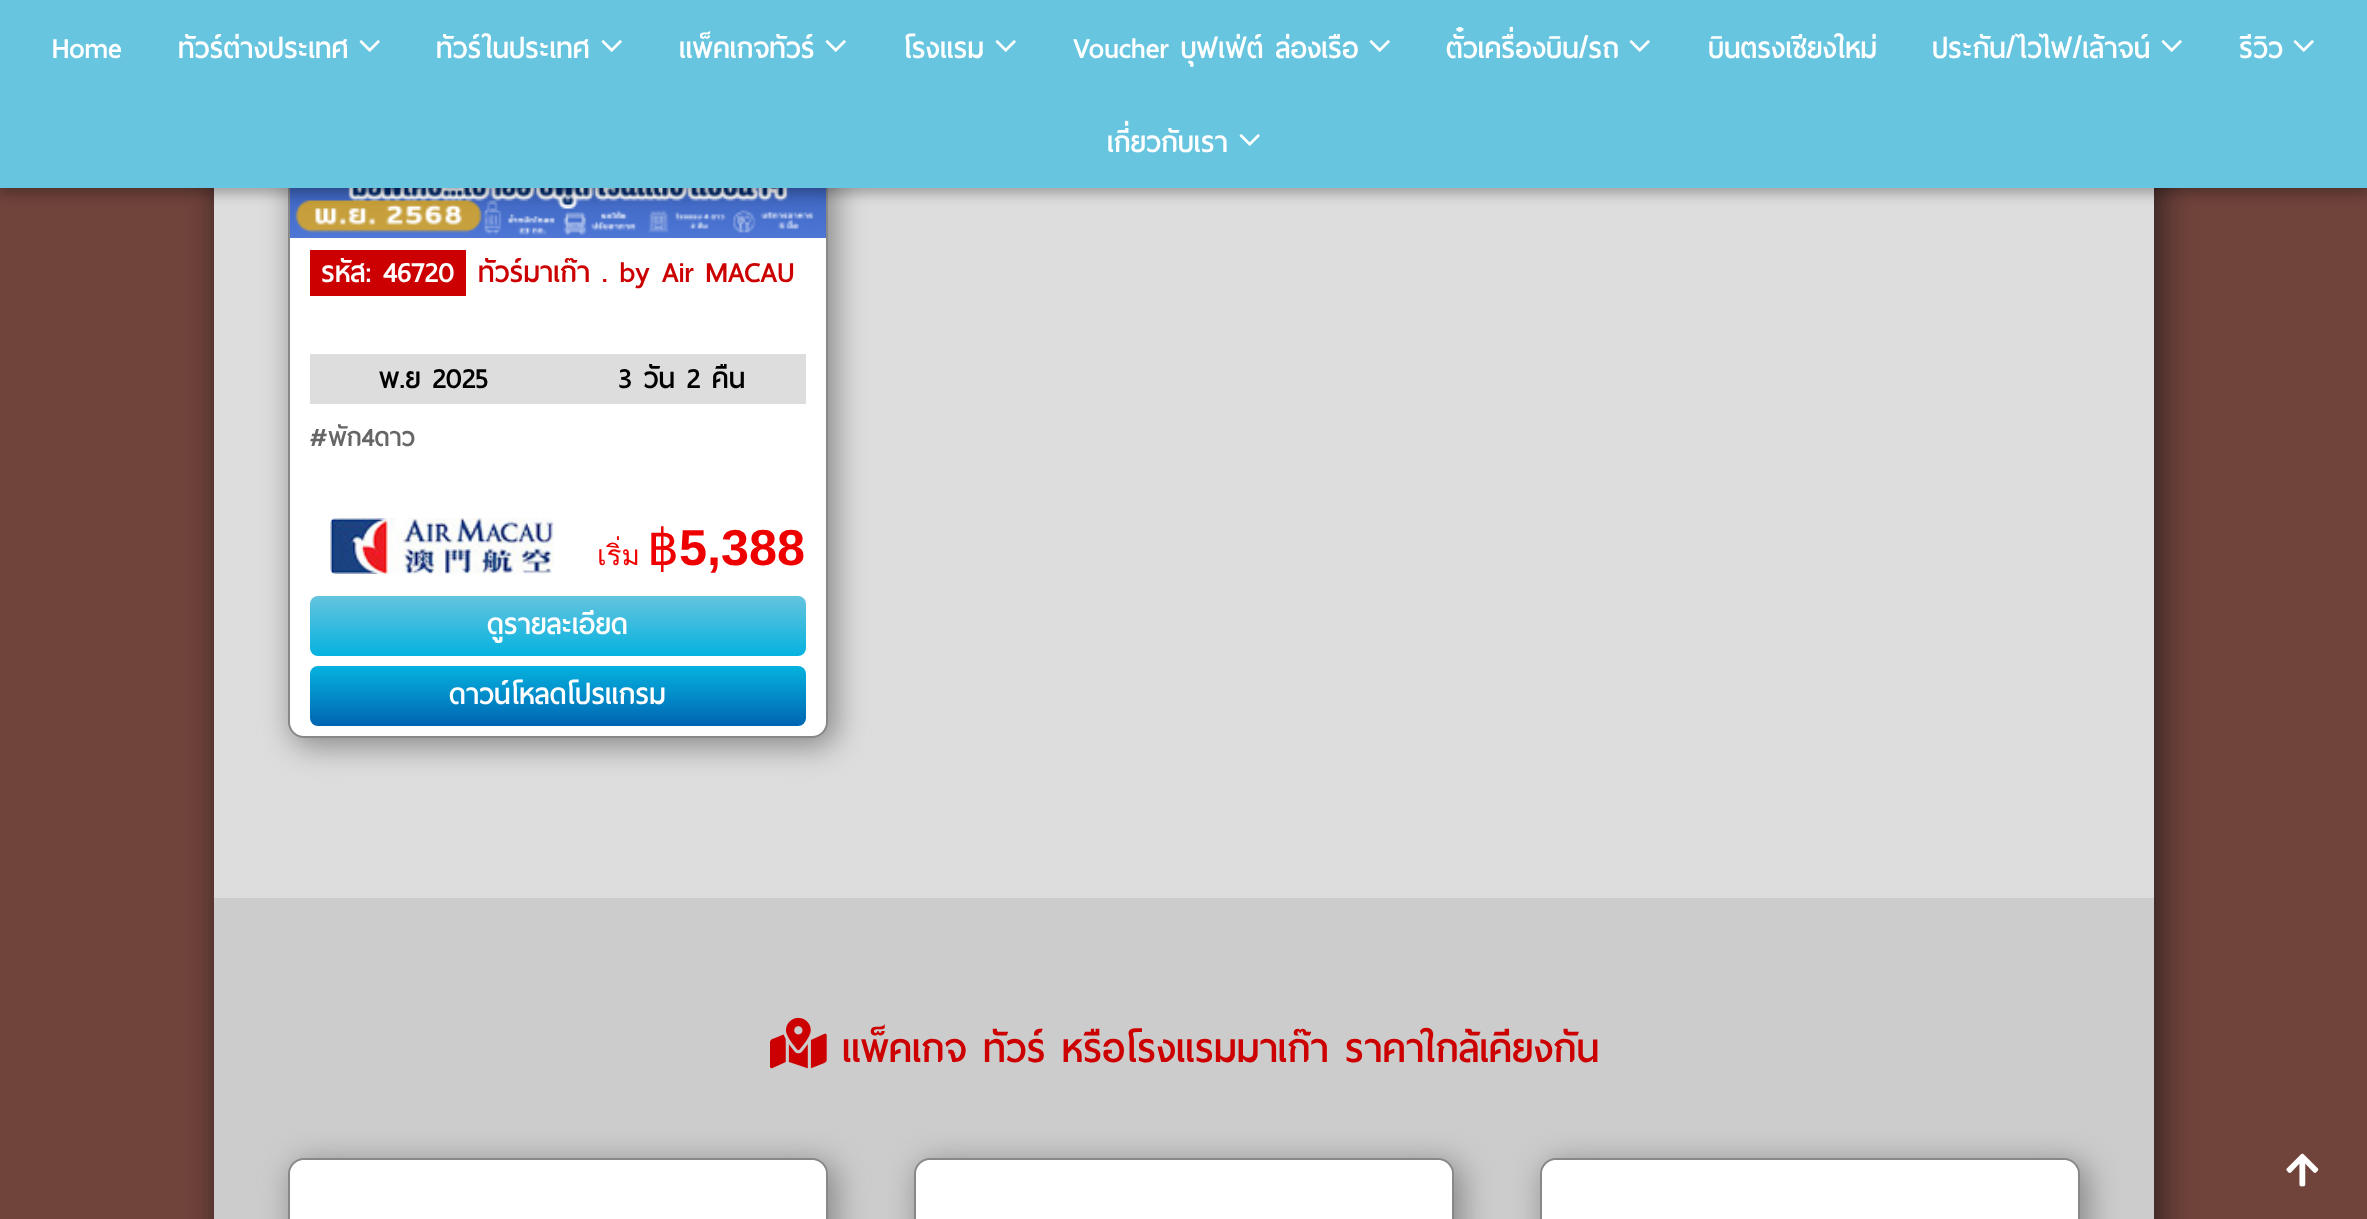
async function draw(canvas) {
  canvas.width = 2367;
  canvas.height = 1219;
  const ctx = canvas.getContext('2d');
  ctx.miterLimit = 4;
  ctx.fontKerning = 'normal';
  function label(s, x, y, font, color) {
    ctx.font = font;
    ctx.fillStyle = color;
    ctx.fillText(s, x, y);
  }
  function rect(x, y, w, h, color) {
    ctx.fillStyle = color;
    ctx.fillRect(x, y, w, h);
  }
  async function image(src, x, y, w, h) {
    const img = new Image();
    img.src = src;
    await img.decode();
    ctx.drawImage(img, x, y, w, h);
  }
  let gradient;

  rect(0, 0, 2367, 1219, '#70433b');
  ctx.fillStyle = '#322';
  ctx.filter = 'blur(15px)';
  ctx.beginPath();
  ctx.roundRect(218, -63, 1944, 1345, 18);
  ctx.fill();
  ctx.filter = 'none';
  rect(214, 188, 1940, 710, '#ddd');
  ctx.fillStyle = '#888';
  ctx.filter = 'blur(15px)';
  ctx.beginPath();
  ctx.roundRect(292, -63, 544, 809, 18);
  ctx.fill();
  ctx.filter = 'none';
  ctx.fillStyle = '#fff';
  ctx.beginPath();
  ctx.roundRect(289, -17, 538, 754, 15);
  ctx.fill();
  ctx.strokeStyle = '#888';
  ctx.lineWidth = 2;
  ctx.stroke();
  await image('assets/img2.png', 290, 188, 536, 50);
  ctx.fillStyle = '#00000042';
  ctx.filter = 'blur(6px)';
  ctx.beginPath();
  ctx.rect(0, 6, 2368, 188);
  ctx.fill();
  ctx.filter = 'none';
  rect(0, 0, 2367, 188, '#67c5df');
  label('Home', 52, 58, 'bold 36.5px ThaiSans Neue', '#fff');
  label('ทัวร์ต่างประเทศ', 178, 58, 'bold 36.5px ThaiSans Neue', '#fff');
  await image('assets/img1.png', 359, 40, 21, 12);
  label('ทัวร์ในประเทศ', 436, 58, 'bold 36.5px ThaiSans Neue', '#fff');
  await image('assets/img1.png', 601, 40, 21, 12);
  label('แพ็คเกจทัวร์', 679, 58, 'bold 36.5px ThaiSans Neue', '#fff');
  await image('assets/img1.png', 825, 40, 21, 12);
  label('โรงแรม', 903, 58, 'bold 36.5px ThaiSans Neue', '#fff');
  await image('assets/img1.png', 995, 40, 21, 12);
  label('Voucher บุฟเฟ่ต์ ล่องเรือ', 1073, 58, 'bold 36.5px ThaiSans Neue', '#fff');
  await image('assets/img1.png', 1369, 40, 21, 12);
  label('ตั๋วเครื่องบิน/รถ', 1446, 58, 'bold 36.5px ThaiSans Neue', '#fff');
  await image('assets/img1.png', 1629, 40, 21, 12);
  label('บินตรงเชียงใหม่', 1708, 58, 'bold 36.5px ThaiSans Neue', '#fff');
  label('ประกัน/ไวไฟ/เล้าจน์', 1932, 58, 'bold 36.5px ThaiSans Neue', '#fff');
  await image('assets/img1.png', 2161, 40, 21, 12);
  label('รีวิว', 2239, 58, 'bold 36.5px ThaiSans Neue', '#fff');
  await image('assets/img1.png', 2293, 40, 21, 12);
  label('เกี่ยวกับเรา', 1107, 152, 'bold 36.5px ThaiSans Neue', '#fff');
  await image('assets/img1.png', 1239, 134, 21, 12);
  rect(310, 250, 156, 46, '#c00');
  label('รหัส: 46720', 321, 282, 'bold 36.5px ThaiSans Neue', '#fff');
  label('ทัวร์มาเก๊า . by Air MACAU', 478, 282, 'bold 36.5px ThaiSans Neue', '#c00');
  rect(310, 354, 496, 50, '#ddd');
  label('พ.ย 2025', 379, 388, 'bold 36.5px ThaiSans Neue', '#000');
  label('3 วัน 2 คืน', 618, 388, 'bold 36.5px ThaiSans Neue', '#000');
  label('#พัก4ดาว', 309, 446, 'bold 33px ThaiSans Neue', '#666');
  await image('assets/img3.png', 330, 518, 224, 56);
  label('เริ่ม', 597, 565, '28px Loma', '#e00');
  label('฿', 647, 565, '50.4px DejaVu Sans', '#e00');
  label('5,388', 679, 565, 'bold 50.4px Liberation Sans', '#e00');
  gradient = ctx.createLinearGradient(558, 596, 558, 656);
  gradient.addColorStop(0, '#65c4de');
  gradient.addColorStop(1, '#05b2df');
  ctx.fillStyle = gradient;
  ctx.beginPath();
  ctx.roundRect(310, 596, 496, 60, 8);
  ctx.fill();
  label('ดูรายละเอียด', 487, 634, 'bold 36.5px ThaiSans Neue', '#fff');
  gradient = ctx.createLinearGradient(558, 666, 558, 726);
  gradient.addColorStop(0, '#05b2df');
  gradient.addColorStop(1, '#0065b2');
  ctx.fillStyle = gradient;
  ctx.beginPath();
  ctx.roundRect(310, 666, 496, 60, 8);
  ctx.fill();
  label('ดาวน์โหลดโปรแกรม', 449, 704, 'bold 36.5px ThaiSans Neue', '#fff');
  rect(214, 898, 1940, 321, '#ccc');
  await image('assets/img4.png', 770, 1017, 57, 52);
  label('แพ็คเกจ ทัวร์ หรือโรงแรมมาเก๊า ราคาใกล้เคียงกัน', 842, 1062, 'bold 50.4px ThaiSans Neue', '#c00');
  ctx.fillStyle = '#888';
  ctx.filter = 'blur(15px)';
  ctx.beginPath();
  ctx.roundRect(292, 1162, 544, 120, 18);
  ctx.fill();
  ctx.filter = 'none';
  ctx.fillStyle = '#fff';
  ctx.beginPath();
  ctx.roundRect(289, 1159, 538, 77, 15);
  ctx.fill();
  ctx.stroke();
  await image('assets/img5.png', 290, 1160, 536, 14);
  ctx.fillStyle = '#888';
  ctx.filter = 'blur(15px)';
  ctx.beginPath();
  ctx.roundRect(918, 1162, 544, 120, 18);
  ctx.fill();
  ctx.filter = 'none';
  ctx.fillStyle = '#fff';
  ctx.beginPath();
  ctx.roundRect(915, 1159, 538, 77, 15);
  ctx.fill();
  ctx.stroke();
  await image('assets/img5.png', 916, 1160, 536, 14);
  ctx.fillStyle = '#888';
  ctx.filter = 'blur(15px)';
  ctx.beginPath();
  ctx.roundRect(1544, 1162, 544, 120, 18);
  ctx.fill();
  ctx.filter = 'none';
  ctx.fillStyle = '#fff';
  ctx.beginPath();
  ctx.roundRect(1541, 1159, 538, 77, 15);
  ctx.fill();
  ctx.stroke();
  await image('assets/img5.png', 1542, 1160, 536, 14);
  await image('assets/img6.png', 2286, 1153, 33, 34);
}

draw(document.querySelector('canvas'));
